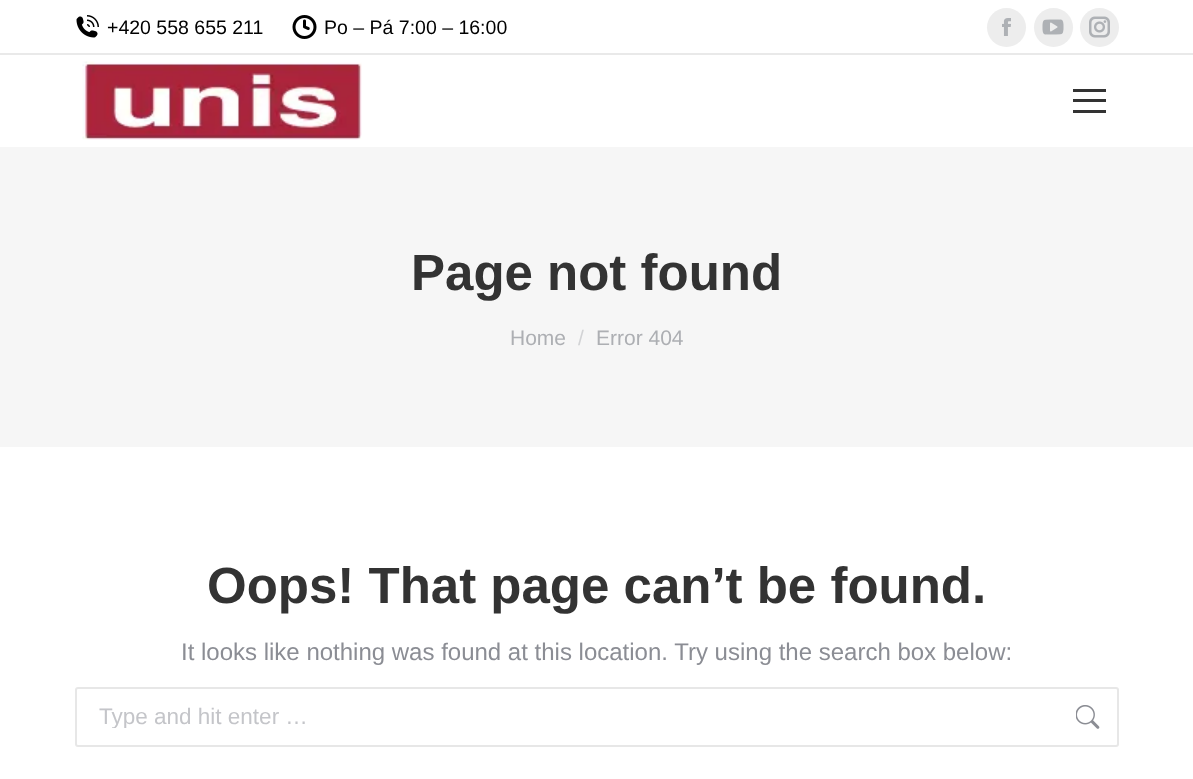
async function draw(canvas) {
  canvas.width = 1193;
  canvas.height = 779;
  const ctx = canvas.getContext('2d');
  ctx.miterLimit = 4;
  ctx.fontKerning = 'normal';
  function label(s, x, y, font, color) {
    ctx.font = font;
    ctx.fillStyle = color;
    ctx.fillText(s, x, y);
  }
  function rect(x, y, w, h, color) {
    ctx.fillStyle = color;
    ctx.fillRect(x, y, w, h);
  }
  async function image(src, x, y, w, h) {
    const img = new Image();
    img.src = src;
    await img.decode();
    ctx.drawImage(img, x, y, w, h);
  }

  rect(0, 0, 1193, 779, '#fff');
  await image('assets/img1.png', 76, 15, 23, 23);
  label('+420 558 655 211', 107, 34, '19.5px Liberation Sans', '#000');
  await image('assets/img2.png', 292, 15, 25, 24);
  label('Po – Pá 7:00 – 16:00', 324, 34, '19.5px Liberation Sans', '#000');
  ctx.fillStyle = '#ededed';
  ctx.beginPath();
  ctx.arc(1006.5, 27.5, 19.5, 0, 2 * Math.PI);
  ctx.fill();
  await image('assets/img3.png', 1002, 18, 9, 18);
  ctx.beginPath();
  ctx.arc(1053.5, 27.5, 19.5, 0, 2 * Math.PI);
  ctx.fill();
  await image('assets/img4.png', 1042, 19, 22, 16);
  ctx.beginPath();
  ctx.arc(1099.5, 27.5, 19.5, 0, 2 * Math.PI);
  ctx.fill();
  await image('assets/img5.png', 1089, 16, 21, 22);
  rect(0, 53, 1193, 2, '#e9e9e9');
  await image('assets/img6.png', 82, 61, 280, 79);
  rect(1073, 89, 33, 3, '#333');
  rect(1073, 99, 33, 3, '#333');
  rect(1073, 110, 33, 3, '#333');
  rect(0, 147, 1193, 300, '#f6f6f6');
  label('Page not found', 411, 290, 'bold 51px Liberation Sans', '#333');
  label('Home', 510, 345, '21px Liberation Sans', '#adafb3');
  label('/', 578, 345, '21px Liberation Sans', '#d2d3d5');
  label('Error 404', 596, 345, '21px Liberation Sans', '#adafb3');
  label('Oops! That page can’t be found.', 207, 603, 'bold 51px Liberation Sans', '#333');
  label('It looks like nothing was found at this location. Try using the search box below:', 181, 660, '24px Liberation Sans', '#8b8d94');
  ctx.beginPath();
  ctx.roundRect(76, 688, 1042, 58, 2);
  ctx.strokeStyle = '#e7e7e7';
  ctx.lineWidth = 2;
  ctx.stroke();
  ctx.save();
  ctx.beginPath();
  ctx.rect(99, 702, 974, 26);
  ctx.clip();
  label('Type and hit enter …', 99, 724, '22.5px Liberation Sans', '#c4c5c9');
  ctx.restore();
  await image('assets/img7.png', 1076, 705, 24, 24);
}

draw(document.querySelector('canvas'));
